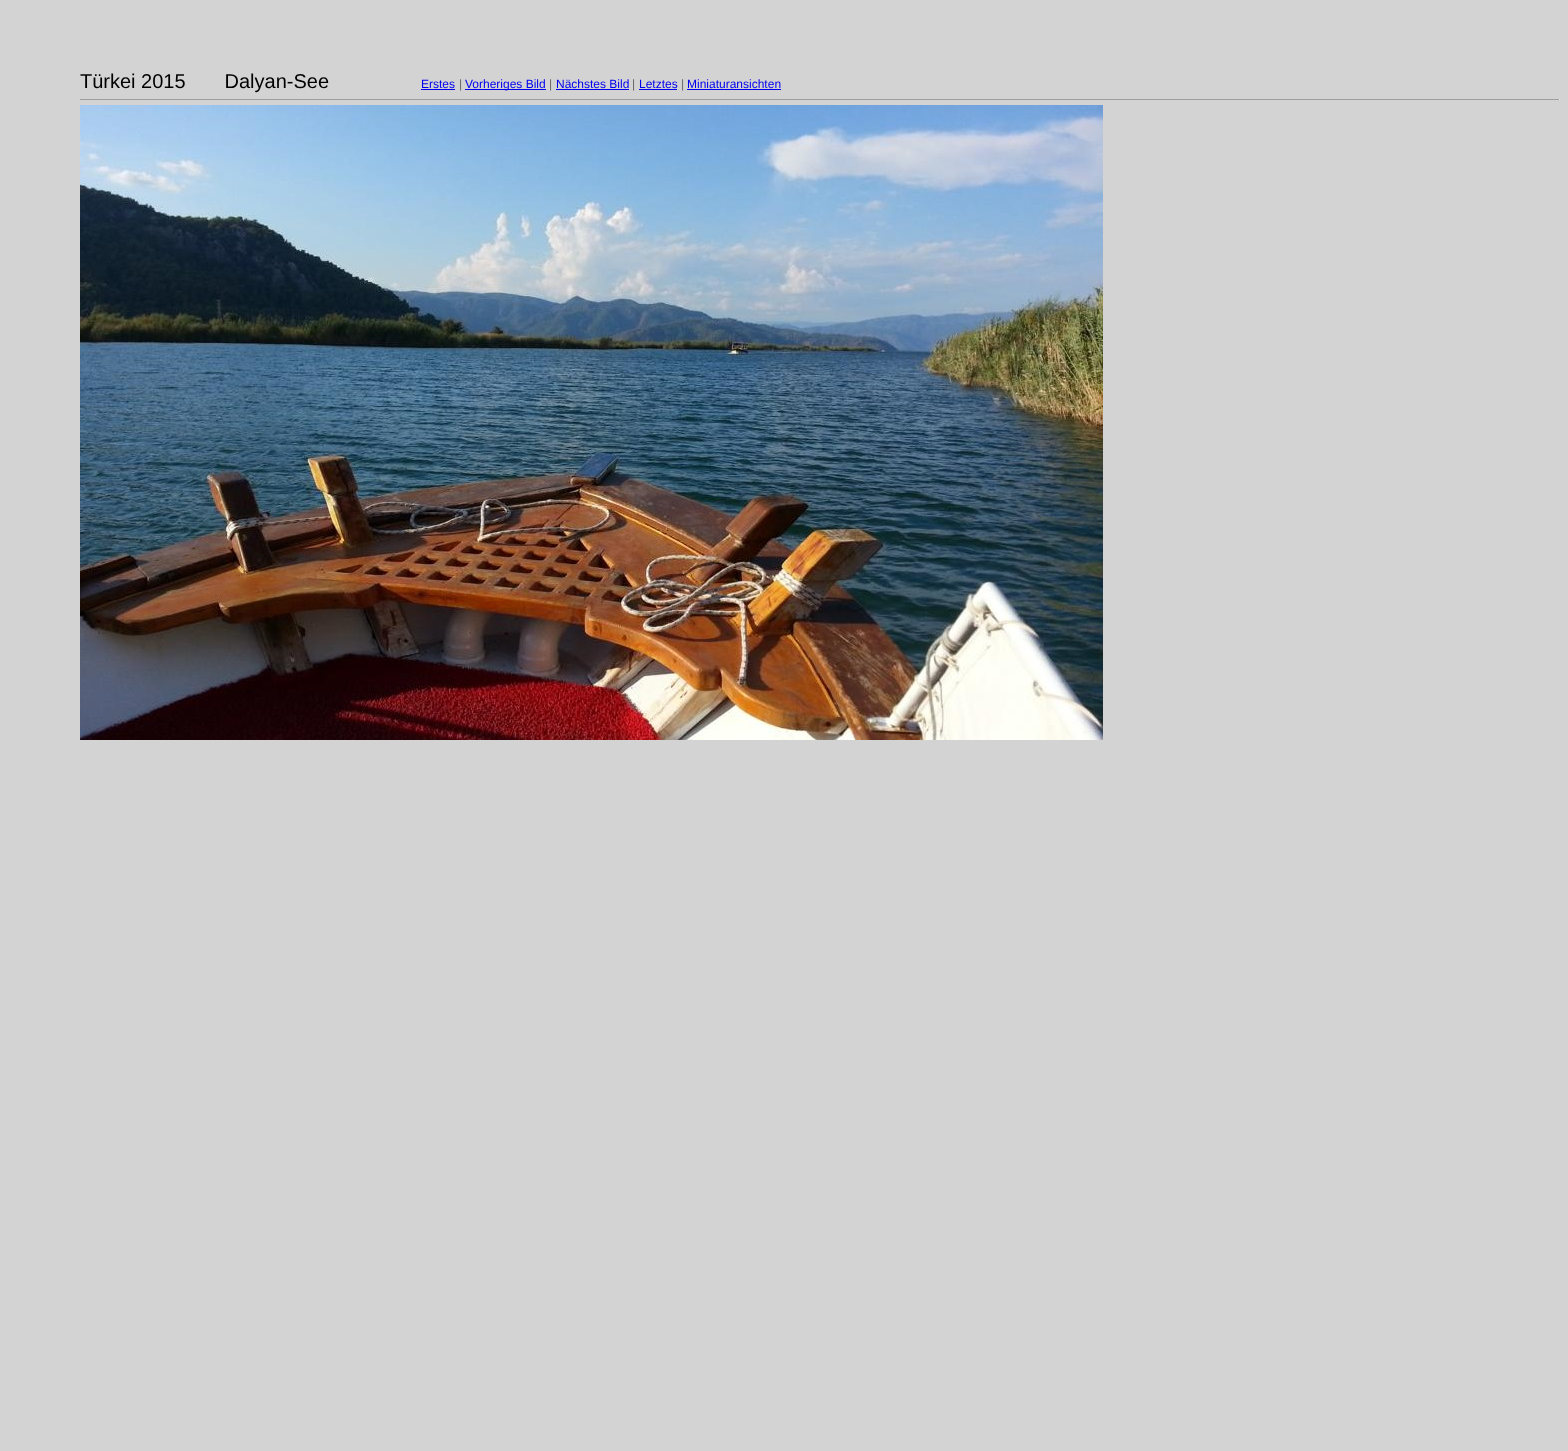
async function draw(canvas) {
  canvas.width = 1568;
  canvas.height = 1451;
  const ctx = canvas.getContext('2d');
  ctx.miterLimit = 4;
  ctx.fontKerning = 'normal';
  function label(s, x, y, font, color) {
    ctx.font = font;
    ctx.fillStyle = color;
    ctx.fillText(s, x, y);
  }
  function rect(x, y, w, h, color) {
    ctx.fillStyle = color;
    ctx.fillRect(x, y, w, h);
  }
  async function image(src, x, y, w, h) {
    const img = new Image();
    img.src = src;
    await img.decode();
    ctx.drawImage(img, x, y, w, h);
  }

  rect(0, 0, 1568, 1451, '#d3d3d3');
  label('Türkei 2015       Dalyan-See', 80, 88, '20px Liberation Sans', '#000');
  label('Erstes', 421, 88, '12px Liberation Sans', '#00e');
  rect(421, 89, 34, 1, '#00e');
  label('|', 459, 88, '12px Liberation Sans', '#666');
  rect(465, 89, 81, 1, '#00e');
  label('Vorheriges Bild', 465, 88, '12px Liberation Sans', '#00e');
  label('|', 549, 88, '12px Liberation Sans', '#666');
  label('Nächstes Bild', 556, 88, '12px Liberation Sans', '#00e');
  rect(556, 89, 73, 1, '#00e');
  label('|', 632, 88, '12px Liberation Sans', '#666');
  label('Letztes', 639, 88, '12px Liberation Sans', '#00e');
  rect(639, 89, 38, 1, '#00e');
  label('|', 681, 88, '12px Liberation Sans', '#666');
  label('Miniaturansichten', 687, 88, '12px Liberation Sans', '#00e');
  rect(687, 89, 94, 1, '#00e');
  rect(80, 99, 1480, 1, '#9f9f9f');
  rect(1559, 99, 1, 1, '#eee');
  await image('assets/img1.png', 80, 105, 1023, 635);
}

draw(document.querySelector('canvas'));
